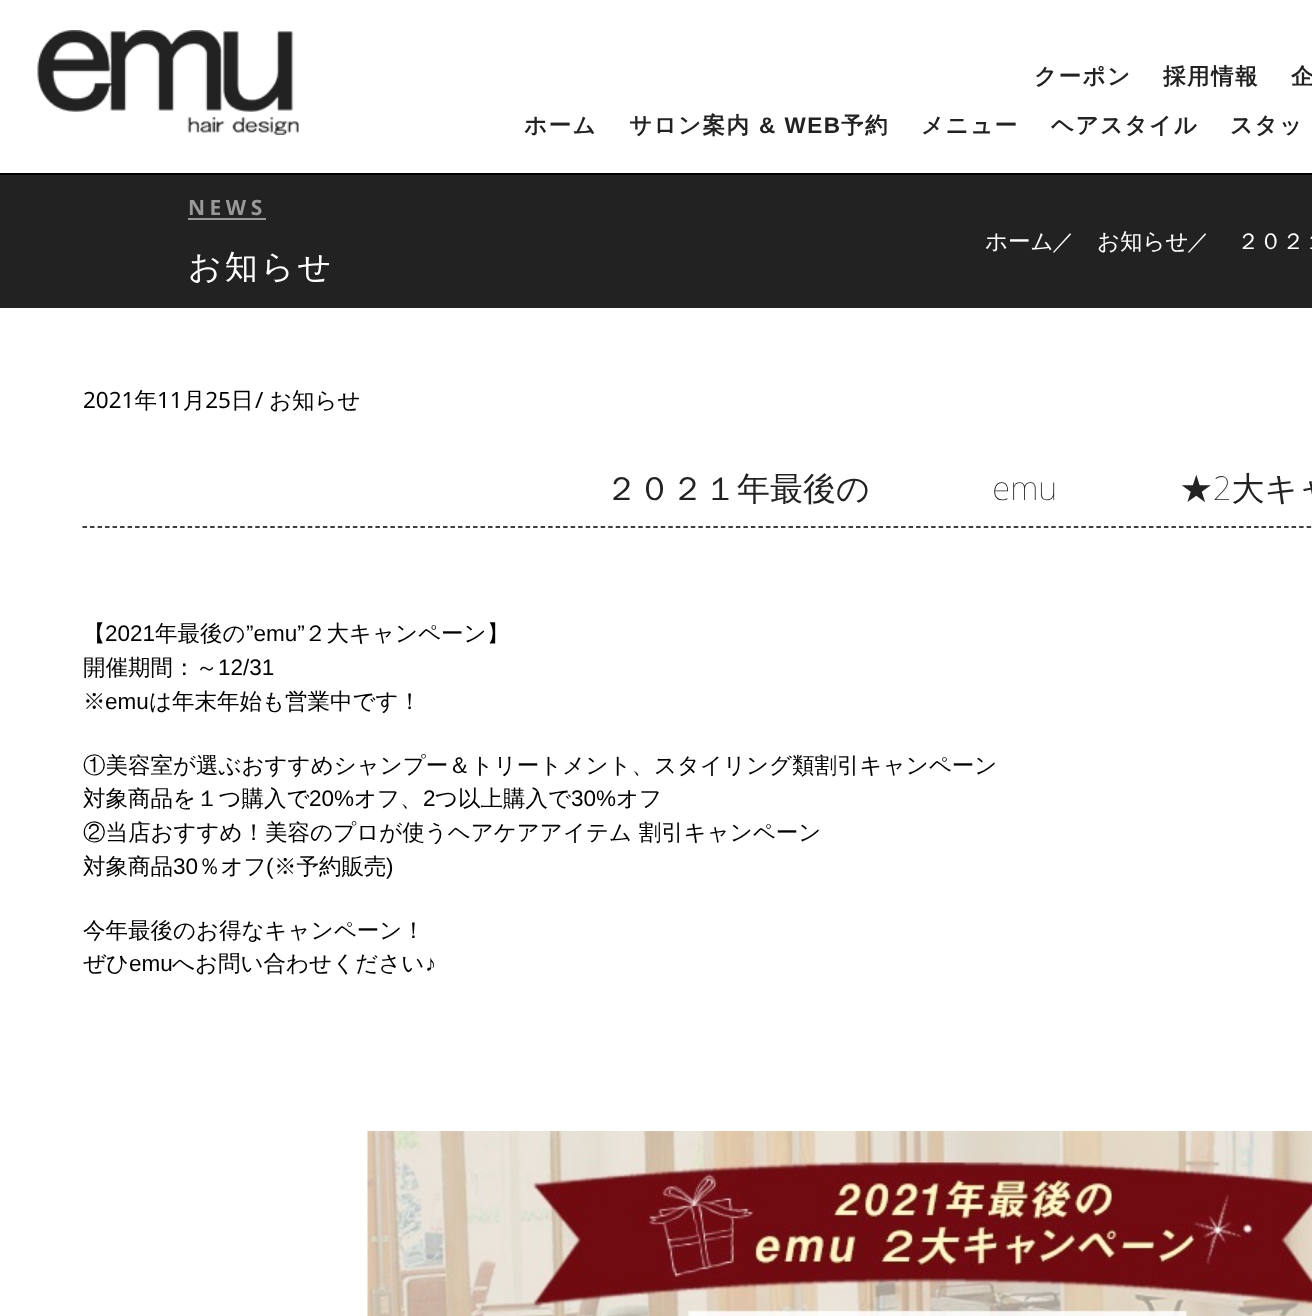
async function draw(canvas) {
  canvas.width = 1312;
  canvas.height = 1316;
  const ctx = canvas.getContext('2d');
  ctx.miterLimit = 4;
  ctx.fontKerning = 'normal';
  function label(s, x, y, font, color) {
    ctx.font = font;
    ctx.fillStyle = color;
    ctx.fillText(s, x, y);
  }
  function rect(x, y, w, h, color) {
    ctx.fillStyle = color;
    ctx.fillRect(x, y, w, h);
  }
  async function image(src, x, y, w, h) {
    const img = new Image();
    img.src = src;
    await img.decode();
    ctx.drawImage(img, x, y, w, h);
  }
  let path;

  rect(0, 0, 1312, 1316, '#fff');
  rect(0, 173, 1312, 2, '#000');
  await image('assets/img1.png', 37, 30, 262, 105);
  ctx.letterSpacing = '1.5px';
  label('クーポン', 1034, 84, 'bold 22.5px WenQuanYi Zen Hei', '#222');
  label('採用情報', 1163, 84, 'bold 22.5px WenQuanYi Zen Hei', '#222');
  label('企', 1291, 84, 'bold 22.5px WenQuanYi Zen Hei', '#222');
  label('ホーム', 524, 133, 'bold 22.5px WenQuanYi Zen Hei', '#222');
  label('サロン案内', 629, 133, 'bold 22.5px WenQuanYi Zen Hei', '#222');
  label('& WEB', 759, 133, 'bold 22.5px Liberation Sans', '#222');
  label('予約', 841, 133, 'bold 22.5px WenQuanYi Zen Hei', '#222');
  label('メニュー', 921, 133, 'bold 22.5px WenQuanYi Zen Hei', '#222');
  label('ヘアスタイル', 1051, 133, 'bold 22.5px WenQuanYi Zen Hei', '#222');
  label('スタッ', 1230, 133, 'bold 22.5px WenQuanYi Zen Hei', '#222');
  rect(0, 175, 1312, 133, '#222');
  ctx.letterSpacing = '4.5px';
  label('NEWS', 188, 215, 'bold 21px Noto Sans', '#999');
  rect(188, 218, 78, 2, '#999');
  ctx.letterSpacing = '3px';
  label('お知らせ', 188, 278, '100 33px Noto Sans', '#fff');
  ctx.letterSpacing = '0px';
  label('ホーム', 985, 249, '22.5px Noto Sans', '#fff');
  label('／', 1052, 249, '22.5px Noto Sans', '#fff');
  label('お知らせ', 1097, 249, '22.5px Noto Sans', '#fff');
  label('／', 1187, 249, '22.5px Noto Sans', '#fff');
  ctx.wordSpacing = '75px';
  label('２０２１年最', 1237, 249, '22.5px Noto Sans', '#fff');
  ctx.wordSpacing = '0px';
  label('2021年11月25日', 83, 408, '22.5px Noto Sans', '#000');
  label('/', 255, 408, '22.5px Noto Sans', '#000');
  label('お知らせ', 269, 408, '22.5px Noto Sans', '#000');
  path = new Path2D('M82.5 527H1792.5');
  ctx.strokeStyle = '#000';
  ctx.lineWidth = 1.5;
  ctx.setLineDash([4.5, 3.01]);
  ctx.stroke(path);
  ctx.wordSpacing = '114px';
  label('２０２１年最後の emu ★2大キャンペーン★', 605, 500, '100 33px Noto Sans', '#222');
  ctx.wordSpacing = '0px';
  label('【', 83, 641, '500 22.5px WenQuanYi Zen Hei', '#000');
  label('2021', 105, 641, '22.5px Liberation Sans', '#000');
  label('年最後の', 155, 641, '500 22.5px WenQuanYi Zen Hei', '#000');
  label('”emu”', 246, 641, '22.5px Liberation Sans', '#000');
  label('２大キャンペーン】', 304, 641, '500 22.5px WenQuanYi Zen Hei', '#000');
  label('開催期間：～', 83, 675, '500 22.5px WenQuanYi Zen Hei', '#000');
  label('12/31', 218, 675, '22.5px Liberation Sans', '#000');
  label('※', 83, 709, '500 22.5px WenQuanYi Zen Hei', '#000');
  label('emu', 105, 709, '22.5px Liberation Sans', '#000');
  label('は年末年始も営業中です！', 149, 709, '500 22.5px WenQuanYi Zen Hei', '#000');
  label('①美容室が選ぶおすすめシャンプー＆トリートメント、スタイリング類割引キャンペーン', 83, 773, '500 22.5px WenQuanYi Zen Hei', '#000');
  label('対象商品を１つ購入で', 83, 806, '500 22.5px WenQuanYi Zen Hei', '#000');
  label('20%', 309, 806, '22.5px Liberation Sans', '#000');
  label('オフ、', 354, 806, '500 22.5px WenQuanYi Zen Hei', '#000');
  label('2', 423, 806, '22.5px Liberation Sans', '#000');
  label('つ以上購入で', 435, 806, '500 22.5px WenQuanYi Zen Hei', '#000');
  label('30%', 571, 806, '22.5px Liberation Sans', '#000');
  label('オフ', 616, 806, '500 22.5px WenQuanYi Zen Hei', '#000');
  label('②当店おすすめ！美容のプロが使うヘアケアアイテム 割引キャンペーン', 83, 840, '500 22.5px WenQuanYi Zen Hei', '#000');
  label('対象商品', 83, 874, '500 22.5px WenQuanYi Zen Hei', '#000');
  label('30', 173, 874, '22.5px Liberation Sans', '#000');
  label('％オフ', 198, 874, '500 22.5px WenQuanYi Zen Hei', '#000');
  label('(', 266, 874, '22.5px Liberation Sans', '#000');
  label('※予約販売', 274, 874, '500 22.5px WenQuanYi Zen Hei', '#000');
  label(')', 386, 874, '22.5px Liberation Sans', '#000');
  label('今年最後のお得なキャンペーン！', 83, 938, '500 22.5px WenQuanYi Zen Hei', '#000');
  label('ぜひ', 83, 971, '500 22.5px WenQuanYi Zen Hei', '#000');
  label('emu', 129, 971, '22.5px Liberation Sans', '#000');
  label('へお問い合わせください', 172, 971, '500 22.5px WenQuanYi Zen Hei', '#000');
  label('♪', 425, 971, '22.5px Liberation Sans', '#000');
  await image('assets/img2.png', 367, 1131, 945, 185);
}

draw(document.querySelector('canvas'));
